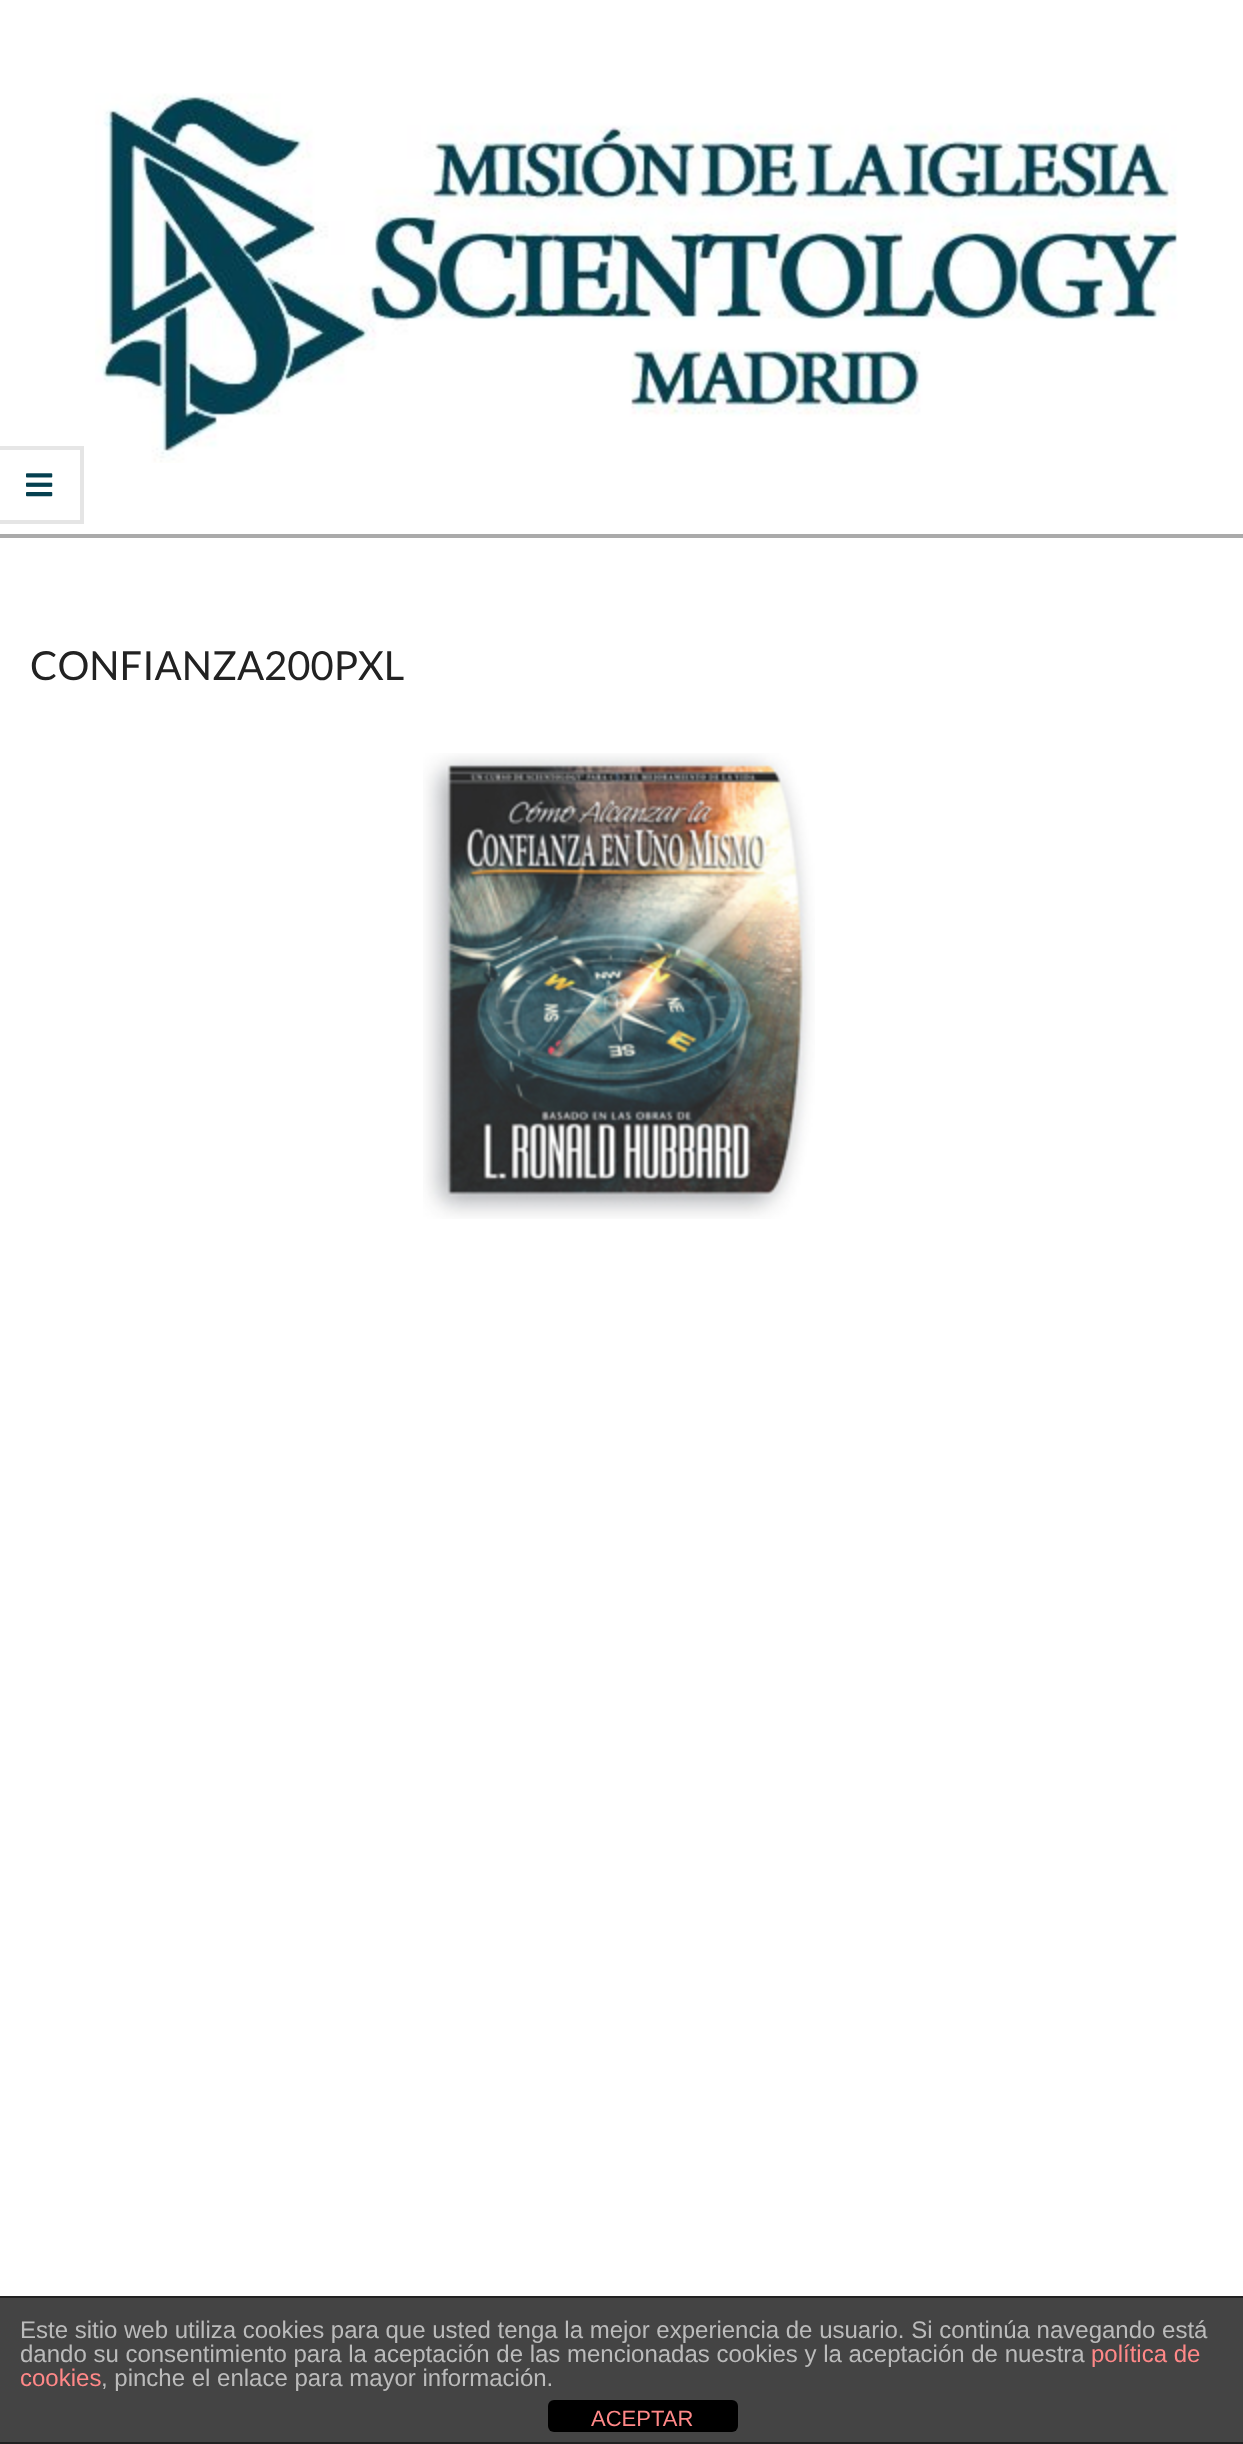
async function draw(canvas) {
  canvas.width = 1243;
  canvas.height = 2444;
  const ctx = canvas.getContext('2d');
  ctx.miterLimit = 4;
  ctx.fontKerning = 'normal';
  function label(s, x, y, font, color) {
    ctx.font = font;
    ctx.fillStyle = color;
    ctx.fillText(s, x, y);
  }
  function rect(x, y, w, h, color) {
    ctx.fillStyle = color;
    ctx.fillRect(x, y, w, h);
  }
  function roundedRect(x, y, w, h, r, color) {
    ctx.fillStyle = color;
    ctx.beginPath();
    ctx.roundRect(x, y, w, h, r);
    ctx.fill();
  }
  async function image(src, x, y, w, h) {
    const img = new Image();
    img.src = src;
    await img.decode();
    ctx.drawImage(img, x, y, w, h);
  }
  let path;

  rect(0, 0, 1243, 2444, '#fff');
  rect(0, 534, 1243, 4, '#aaa');
  await image('assets/img1.png', 95, 93, 1083, 370);
  ctx.fillStyle = '#e6e6e6';
  path = new Path2D('M0 446H84L80 450H0Z');
  ctx.fill(path);
  ctx.fillStyle = '#0000001a';
  path = new Path2D('M84 446V524L80 520V450Z');
  ctx.fill(path);
  path = new Path2D('M84 524H0V520H80Z');
  ctx.fill(path);
  await image('assets/img2.png', 26, 473, 27, 24);
  label('CONFIANZA200PXL', 30, 680, '40px Lato', '#222');
  await image('assets/img3.png', 423, 753, 392, 466);
  rect(0, 2298, 1243, 144, '#444');
  rect(0, 2296, 1243, 2, '#222');
  rect(0, 2442, 1243, 2, '#222');
  label('Este sitio web utiliza cookies para que usted tenga la mejor experiencia de usuario. Si continúa navegando está', 20, 2338, '24px Liberation Sans', '#bbb');
  label('dando su consentimiento para la aceptación de las mencionadas cookies y la aceptación de nuestra', 20, 2362, '24px Liberation Sans', '#bbb');
  label('política de', 1091, 2362, '24px Liberation Sans', '#f88');
  label('cookies', 20, 2386, '24px Liberation Sans', '#f88');
  label(', pinche el enlace para mayor información.', 101, 2386, '24px Liberation Sans', '#bbb');
  roundedRect(548, 2400, 190, 32, 6, '#000');
  label('ACEPTAR', 591, 2426, '22px Liberation Sans', '#f88');
}

draw(document.querySelector('canvas'));
